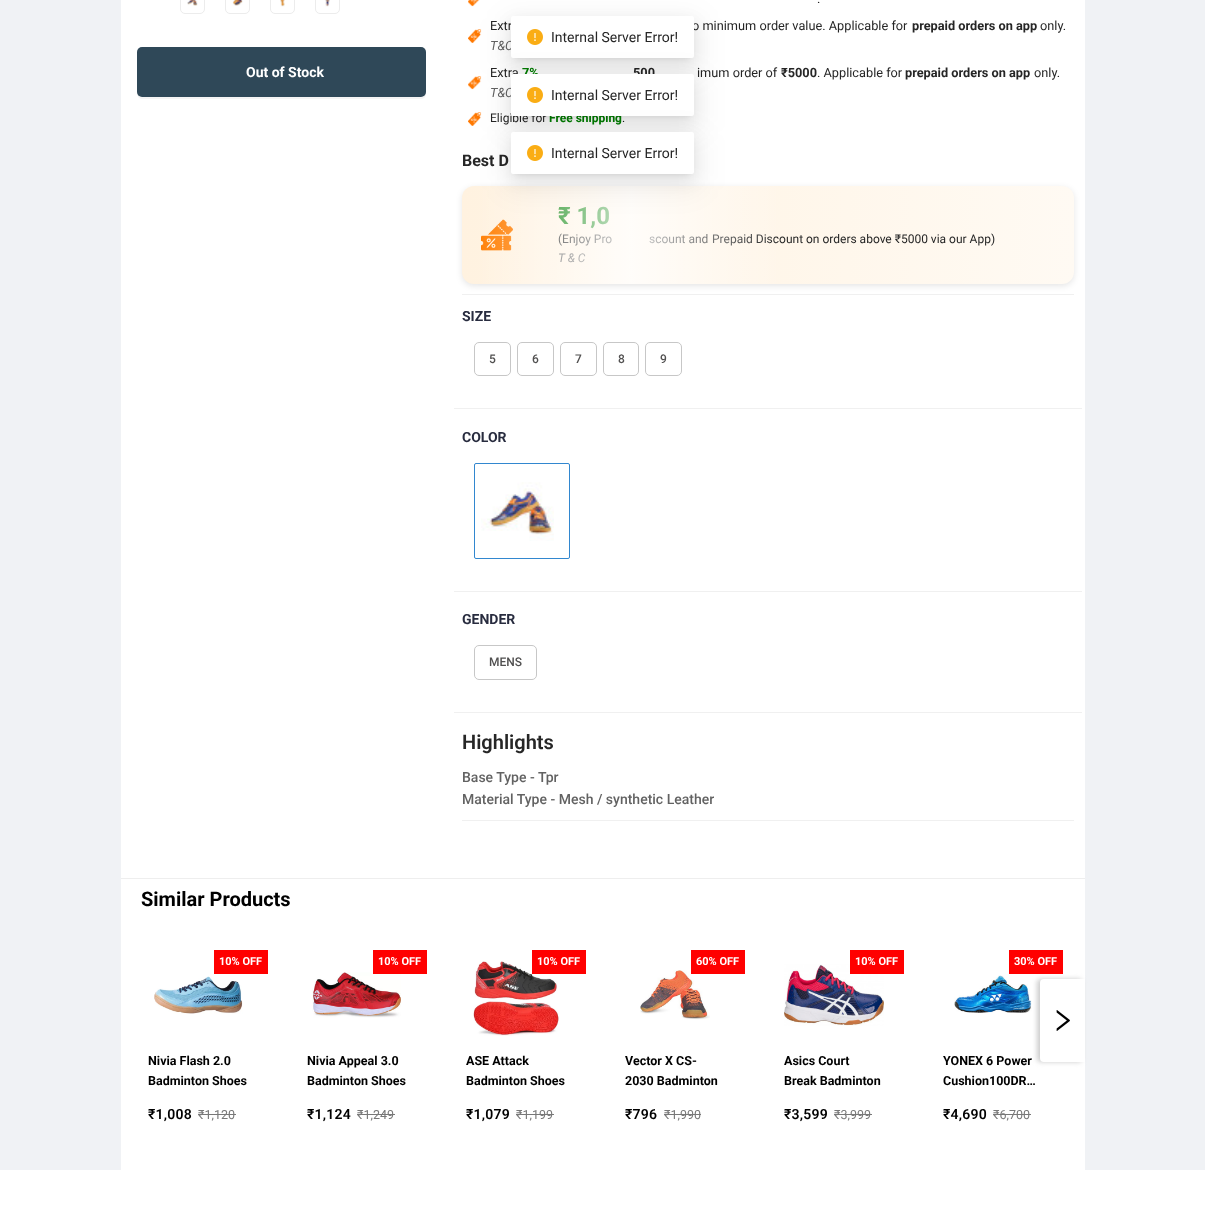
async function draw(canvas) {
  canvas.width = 1205;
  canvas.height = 1205;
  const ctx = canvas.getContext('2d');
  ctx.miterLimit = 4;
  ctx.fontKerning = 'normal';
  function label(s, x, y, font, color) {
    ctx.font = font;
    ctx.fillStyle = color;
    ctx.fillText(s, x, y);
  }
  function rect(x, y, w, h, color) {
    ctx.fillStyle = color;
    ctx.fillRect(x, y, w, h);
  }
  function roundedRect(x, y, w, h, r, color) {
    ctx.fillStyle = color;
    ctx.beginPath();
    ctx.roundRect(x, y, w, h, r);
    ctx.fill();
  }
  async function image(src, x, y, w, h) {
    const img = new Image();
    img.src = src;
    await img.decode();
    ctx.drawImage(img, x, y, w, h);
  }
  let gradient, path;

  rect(0, 0, 1205, 1205, '#f0f2f5');
  rect(121, 0, 964, 1170, '#fff');
  ctx.beginPath();
  ctx.roundRect(180.5, -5.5, 24, 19, 4.5);
  ctx.strokeStyle = '#ececec';
  ctx.stroke();
  await image('assets/img1.png', 187, 0, 11, 6);
  ctx.beginPath();
  ctx.roundRect(225.5, -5.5, 24, 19, 4.5);
  ctx.stroke();
  await image('assets/img2.png', 232, 0, 11, 6);
  ctx.beginPath();
  ctx.roundRect(270.5, -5.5, 24, 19, 4.5);
  ctx.stroke();
  await image('assets/img3.png', 280, 0, 5, 7);
  ctx.beginPath();
  ctx.roundRect(315.5, -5.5, 24, 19, 4.5);
  ctx.stroke();
  await image('assets/img4.png', 325, 0, 5, 7);
  ctx.fillStyle = '#f4f4f4';
  path = new Path2D('M137 92C137 95 138 99 142 99H422C426 98 426 95 426 92C426 95 424 97 421 97H142C139 97 137 95 137 92Z');
  ctx.fill(path);
  roundedRect(137, 47, 289, 50, 5, '#2f4858');
  label('Out of Stock', 246, 77, 'bold 14px Roboto', '#fff');
  await image('assets/img5.png', 468, 0, 12, 7);
  label('.', 817, 3, '12.75px Roboto', '#262626');
  await image('assets/img6.png', 468, 29, 14, 14);
  label('Extr', 490, 30, '12.75px Roboto', '#262626');
  label('o minimum order value. Applicable for', 692, 30, '12.75px Roboto', '#262626');
  label('prepaid orders on app', 912, 30, 'bold 12.75px Roboto', '#262626');
  label('only.', 1040, 30, '12.75px Roboto', '#262626');
  label('T&C', 490, 50, 'italic 12.75px Roboto', '#626262');
  await image('assets/img7.png', 468, 76, 14, 14);
  label('Extra', 490, 77, '12.75px Roboto', '#262626');
  label('7%', 522, 77, 'bold 12.75px Roboto', '#008000');
  label('500', 633, 77, 'bold 12.75px Roboto', '#262626');
  label('imum order of', 697, 77, '12.75px Roboto', '#262626');
  label('₹5000', 781, 77, 'bold 12.75px Roboto', '#262626');
  label('. Applicable for', 817, 77, '12.75px Roboto', '#262626');
  label('prepaid orders on app', 905, 77, 'bold 12.75px Roboto', '#262626');
  label('only.', 1034, 77, '12.75px Roboto', '#262626');
  label('T&C', 490, 97, 'italic 12.75px Roboto', '#626262');
  await image('assets/img6.png', 468, 112, 14, 14);
  label('Eligible for', 490, 122, '12px Roboto', '#262626');
  label('Free shipping', 549, 122, 'bold 12px Roboto', '#008000');
  label('.', 622, 122, '12px Roboto', '#262626');
  label('Best D', 462, 166, 'bold 16px Roboto', '#262626');
  rect(462, 294, 612, 1, '#f0f0f0');
  ctx.fillStyle = '#0000001a';
  ctx.filter = 'blur(3px)';
  ctx.beginPath();
  ctx.roundRect(462, 188, 612, 98, 12);
  ctx.fill();
  ctx.filter = 'none';
  gradient = ctx.createLinearGradient(462, 235, 1074, 235);
  gradient.addColorStop(0, '#fff2e0');
  gradient.addColorStop(1, '#fffaf3');
  ctx.fillStyle = gradient;
  ctx.beginPath();
  ctx.roundRect(462, 186, 612, 98, 12);
  ctx.fill();
  await image('assets/img8.png', 481, 219, 32, 32);
  label('₹ 1,0', 558, 224, 'bold 24px Roboto', '#008000');
  label('(Enjoy Pro', 558, 243, '12px Roboto', '#262626');
  label('scount and', 649, 243, '12px Roboto', '#262626');
  label('Prepaid Discount', 712, 243, '12px Roboto', '#262626');
  label('T & C', 558, 262, 'italic 12px Roboto', '#626262');
  gradient = ctx.createLinearGradient(478, 235, 784, 235);
  gradient.addColorStop(0, '#ffffff00');
  gradient.addColorStop(0.5, '#ffffffcc');
  gradient.addColorStop(0.99, '#ffffff00');
  gradient.addColorStop(1, '#7db9e800');
  ctx.fillStyle = gradient;
  ctx.fillRect(482, 186, 295, 98);
  label('on orders above ₹5000 via our App)', 806, 243, '12px Roboto', '#262626');
  label('SIZE', 462, 321, 'bold 14px Roboto', '#282c3f');
  ctx.beginPath();
  ctx.roundRect(474.5, 342.5, 36, 33, 4.5);
  ctx.strokeStyle = '#c7c7c7';
  ctx.stroke();
  label('5', 489, 363, '500 12px Roboto', '#515050');
  ctx.beginPath();
  ctx.roundRect(517.5, 342.5, 36, 33, 4.5);
  ctx.stroke();
  label('6', 532, 363, '500 12px Roboto', '#515050');
  ctx.beginPath();
  ctx.roundRect(560.5, 342.5, 36, 33, 4.5);
  ctx.stroke();
  label('7', 575, 363, '500 12px Roboto', '#515050');
  ctx.beginPath();
  ctx.roundRect(603.5, 342.5, 35, 33, 4.5);
  ctx.stroke();
  label('8', 618, 363, '500 12px Roboto', '#515050');
  ctx.beginPath();
  ctx.roundRect(645.5, 342.5, 36, 33, 4.5);
  ctx.stroke();
  label('9', 660, 363, '500 12px Roboto', '#515050');
  rect(454, 408, 628, 1, '#f0f0f0');
  label('COLOR', 462, 442, 'bold 14px Roboto', '#282c3f');
  ctx.beginPath();
  ctx.roundRect(474.5, 463.5, 95, 95, 1.5);
  ctx.strokeStyle = '#3287cf';
  ctx.stroke();
  await image('assets/img9.png', 481, 482, 73, 59);
  rect(454, 591, 628, 1, '#f0f0f0');
  label('GENDER', 462, 624, 'bold 14px Roboto', '#282c3f');
  ctx.beginPath();
  ctx.roundRect(474.5, 645.5, 62, 34, 4.5);
  ctx.strokeStyle = '#c7c7c7';
  ctx.stroke();
  label('MENS', 489, 666, '500 12px Roboto', '#515050');
  rect(454, 712, 628, 1, '#f0f0f0');
  label('Highlights', 462, 749, '600 20px Roboto', '#262626');
  label('Base Type - Tpr', 462, 782, '500 14px Roboto', '#626262');
  label('Material Type - Mesh / synthetic Leather', 462, 804, '500 14px Roboto', '#626262');
  rect(462, 820, 612, 1, '#f0f0f0');
  rect(121, 878, 964, 1, '#eee');
  label('Similar Products', 141, 906, 'bold 20px Roboto', '#000');
  rect(214, 950, 54, 24, '#f00');
  label('10% OFF', 219, 965, 'bold 11px Roboto', '#fff');
  await image('assets/img10.png', 154, 976, 89, 38);
  label('Nivia Flash 2.0', 148, 1065, 'bold 12.5px Roboto', '#000');
  label('Badminton Shoes', 148, 1085, 'bold 12.5px Roboto', '#000');
  ctx.letterSpacing = '0.25px';
  label('₹1,008', 148, 1119, '600 14px Roboto', '#000');
  ctx.letterSpacing = '0px';
  label('₹1,120', 198, 1119, '12.5px Roboto', '#787878');
  rect(198, 1114, 38, 1, '#787878');
  await image('assets/img11.png', 312, 972, 89, 46);
  rect(373, 950, 54, 24, '#f00');
  label('10% OFF', 378, 965, 'bold 11px Roboto', '#fff');
  label('Nivia Appeal 3.0', 307, 1065, 'bold 12.5px Roboto', '#000');
  label('Badminton Shoes', 307, 1085, 'bold 12.5px Roboto', '#000');
  ctx.letterSpacing = '0.25px';
  label('₹1,124', 307, 1119, '600 14px Roboto', '#000');
  ctx.letterSpacing = '0px';
  label('₹1,249', 357, 1119, '12.5px Roboto', '#787878');
  rect(357, 1114, 38, 1, '#787878');
  await image('assets/img12.png', 473, 961, 86, 75);
  rect(532, 950, 54, 24, '#f00');
  label('10% OFF', 537, 965, 'bold 11px Roboto', '#fff');
  label('ASE Attack', 466, 1065, 'bold 12.5px Roboto', '#000');
  label('Badminton Shoes', 466, 1085, 'bold 12.5px Roboto', '#000');
  ctx.letterSpacing = '0.25px';
  label('₹1,079', 466, 1119, '600 14px Roboto', '#000');
  ctx.letterSpacing = '0px';
  label('₹1,199', 516, 1119, '12.5px Roboto', '#787878');
  rect(516, 1114, 38, 1, '#787878');
  await image('assets/img13.png', 640, 970, 70, 50);
  rect(691, 950, 54, 24, '#f00');
  label('60% OFF', 696, 965, 'bold 11px Roboto', '#fff');
  label('Vector X CS-', 625, 1065, 'bold 12.5px Roboto', '#000');
  label('2030 Badminton', 625, 1085, 'bold 12.5px Roboto', '#000');
  ctx.letterSpacing = '0.25px';
  label('₹796', 625, 1119, '600 14px Roboto', '#000');
  ctx.letterSpacing = '0px';
  label('₹1,990', 664, 1119, '12.5px Roboto', '#787878');
  rect(664, 1114, 37, 1, '#787878');
  await image('assets/img14.png', 784, 964, 100, 62);
  rect(850, 950, 54, 24, '#f00');
  label('10% OFF', 855, 965, 'bold 11px Roboto', '#fff');
  label('Asics Court', 784, 1065, 'bold 12.5px Roboto', '#000');
  label('Break Badminton', 784, 1085, 'bold 12.5px Roboto', '#000');
  ctx.letterSpacing = '0.25px';
  label('₹3,599', 784, 1119, '600 14px Roboto', '#000');
  ctx.letterSpacing = '0px';
  label('₹3,999', 834, 1119, '12.5px Roboto', '#787878');
  rect(834, 1114, 38, 1, '#787878');
  rect(1009, 950, 54, 24, '#f00');
  label('30% OFF', 1014, 965, 'bold 11px Roboto', '#fff');
  await image('assets/img15.png', 954, 975, 78, 38);
  label('YONEX 6 Power', 943, 1065, 'bold 12.5px Roboto', '#000');
  label('Cushion100DR…', 943, 1085, 'bold 12.5px Roboto', '#000');
  ctx.letterSpacing = '0.25px';
  label('₹4,690', 943, 1119, '600 14px Roboto', '#000');
  ctx.letterSpacing = '0px';
  label('₹6,700', 993, 1119, '12.5px Roboto', '#787878');
  rect(993, 1114, 38, 1, '#787878');
  ctx.fillStyle = '#ccc';
  ctx.filter = 'blur(2.5px)';
  ctx.beginPath();
  ctx.roundRect(1037, 979, 45, 83, 4);
  ctx.fill();
  ctx.filter = 'none';
  ctx.fillStyle = '#fff';
  ctx.beginPath();
  ctx.roundRect(1040, 979, 45, 83, [4, 0, 0, 4]);
  ctx.fill();
  await image('assets/img16.png', 1056, 1010, 14, 21);
  rect(0, 1170, 1205, 35, '#fff');
  ctx.fillStyle = '#0000000d';
  ctx.filter = 'blur(14px)';
  ctx.beginPath();
  ctx.roundRect(503, 17, 199, 58, 10);
  ctx.fill();
  ctx.filter = 'none';
  ctx.fillStyle = '#00000014';
  ctx.filter = 'blur(8px)';
  ctx.beginPath();
  ctx.roundRect(511, 22, 183, 42, 2);
  ctx.fill();
  ctx.filter = 'none';
  ctx.fillStyle = '#0000001f';
  ctx.filter = 'blur(3px)';
  ctx.beginPath();
  ctx.rect(515, 23, 175, 34);
  ctx.fill();
  ctx.filter = 'none';
  roundedRect(511, 16, 183, 42, 2, '#fff');
  ctx.fillStyle = '#0000000d';
  ctx.filter = 'blur(14px)';
  ctx.beginPath();
  ctx.roundRect(503, 75, 199, 58, 10);
  ctx.fill();
  ctx.filter = 'none';
  await image('assets/img17.png', 527, 29, 16, 16);
  label('Internal Server Error!', 551, 42, '14px Roboto', '#262626');
  ctx.fillStyle = '#00000014';
  ctx.filter = 'blur(8px)';
  ctx.beginPath();
  ctx.roundRect(511, 80, 183, 42, 2);
  ctx.fill();
  ctx.filter = 'none';
  ctx.fillStyle = '#0000001f';
  ctx.filter = 'blur(3px)';
  ctx.beginPath();
  ctx.rect(515, 81, 175, 34);
  ctx.fill();
  ctx.filter = 'none';
  roundedRect(511, 74, 183, 42, 2, '#fff');
  ctx.fillStyle = '#0000000d';
  ctx.filter = 'blur(14px)';
  ctx.beginPath();
  ctx.roundRect(503, 133, 199, 58, 10);
  ctx.fill();
  ctx.filter = 'none';
  await image('assets/img17.png', 527, 87, 16, 16);
  label('Internal Server Error!', 551, 100, '14px Roboto', '#262626');
  ctx.fillStyle = '#00000014';
  ctx.filter = 'blur(8px)';
  ctx.beginPath();
  ctx.roundRect(511, 138, 183, 42, 2);
  ctx.fill();
  ctx.filter = 'none';
  ctx.fillStyle = '#0000001f';
  ctx.filter = 'blur(3px)';
  ctx.beginPath();
  ctx.rect(515, 139, 175, 34);
  ctx.fill();
  ctx.filter = 'none';
  roundedRect(511, 132, 183, 42, 2, '#fff');
  await image('assets/img18.png', 527, 145, 16, 16);
  label('Internal Server Error!', 551, 158, '14px Roboto', '#262626');
}

draw(document.querySelector('canvas'));
